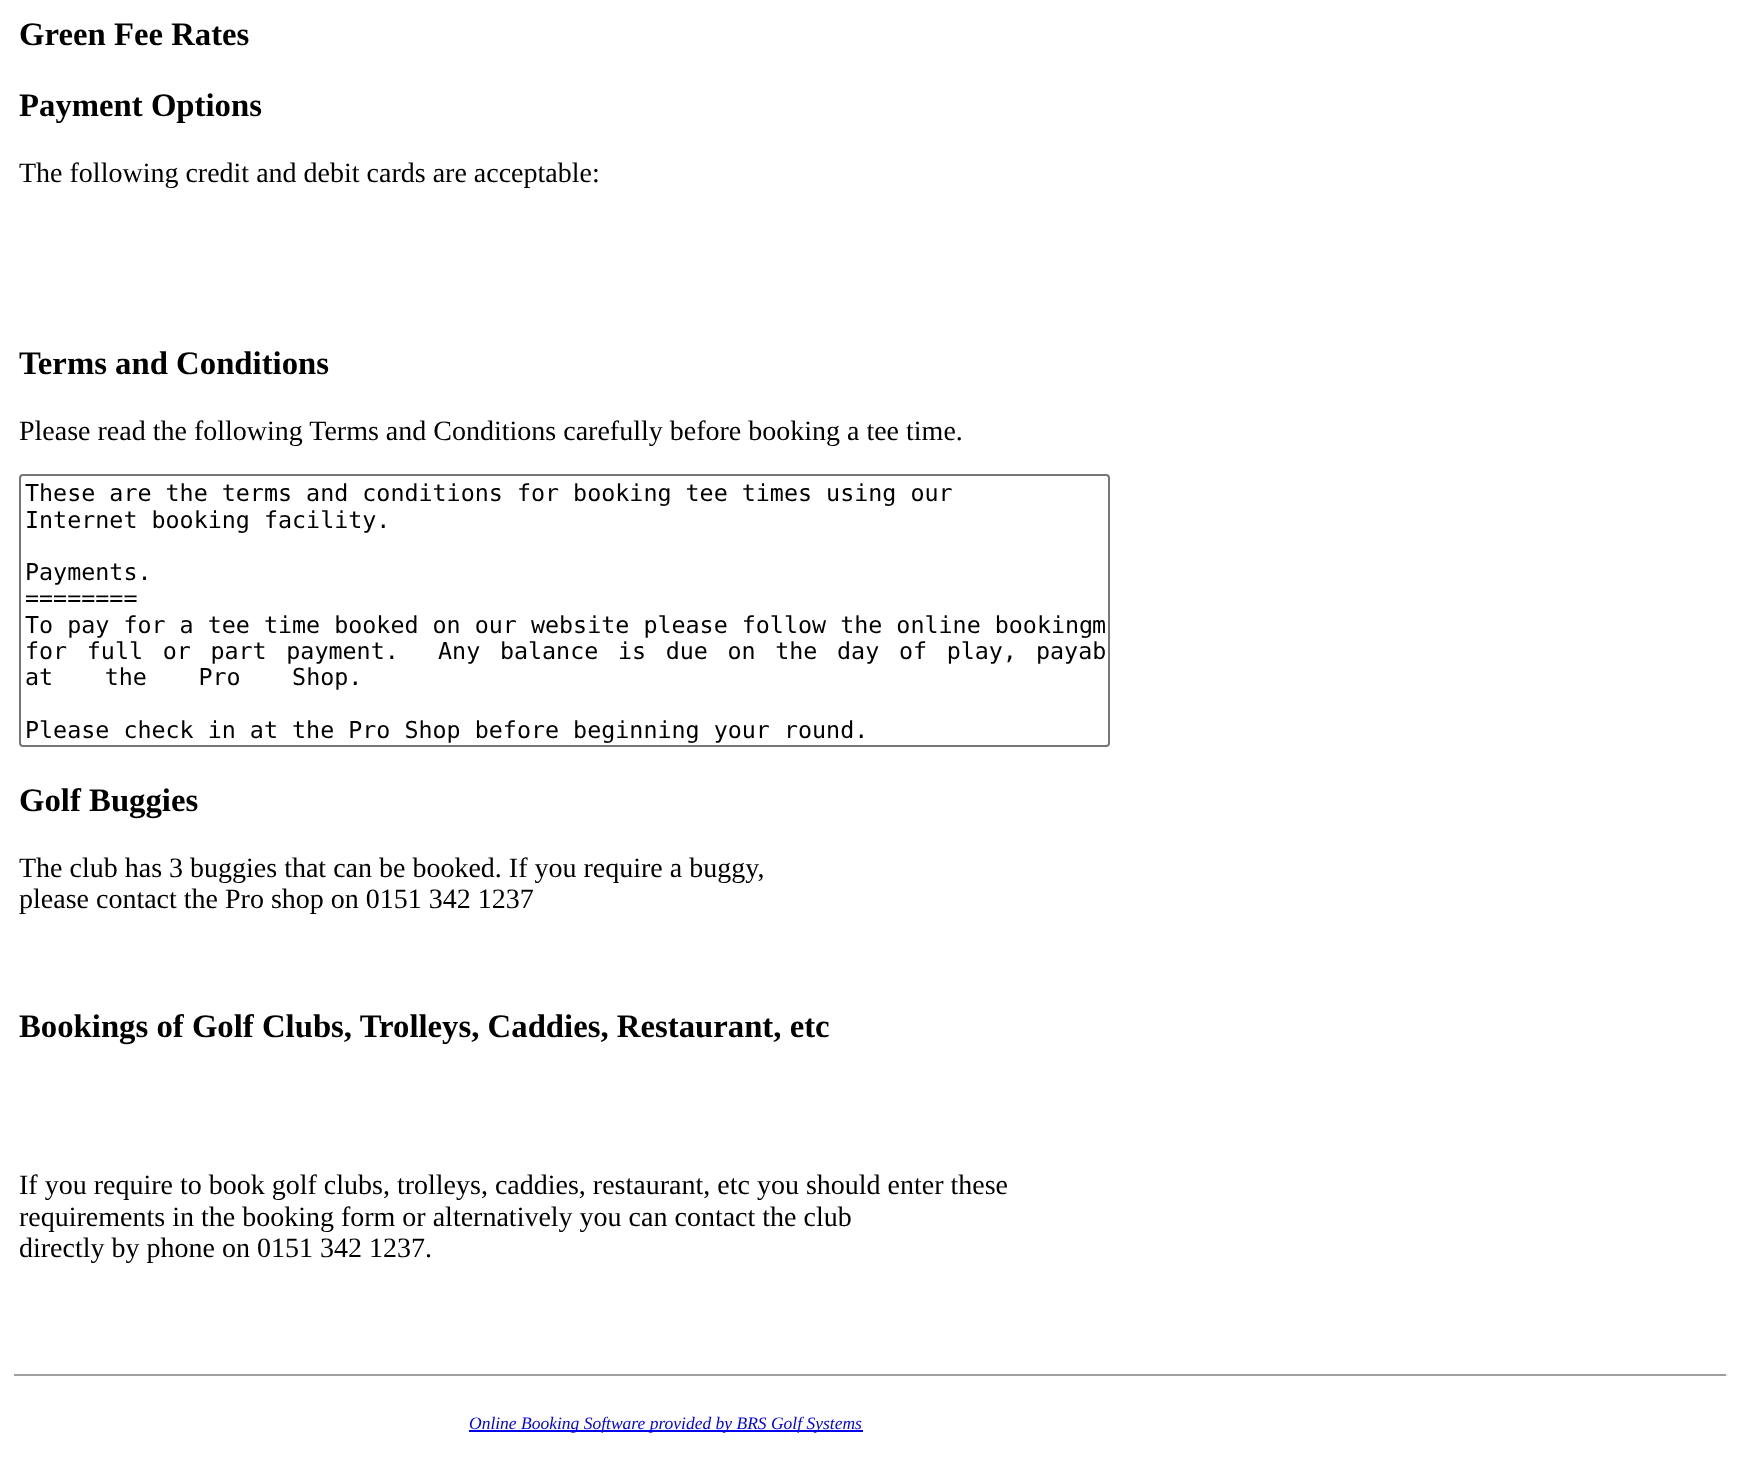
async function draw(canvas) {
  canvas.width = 1740;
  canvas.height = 1463;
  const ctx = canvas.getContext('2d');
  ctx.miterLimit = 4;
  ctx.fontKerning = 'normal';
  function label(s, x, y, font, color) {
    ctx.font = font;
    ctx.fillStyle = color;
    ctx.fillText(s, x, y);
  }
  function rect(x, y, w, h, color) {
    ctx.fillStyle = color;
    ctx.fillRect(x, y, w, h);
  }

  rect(0, 0, 1740, 1463, '#fff');
  label('Green Fee Rates', 19, 45, 'bold 32.75px Liberation Serif', '#000');
  label('Payment Options', 19, 116, 'bold 32.75px Liberation Serif', '#000');
  label('The following credit and debit cards are acceptable:', 19, 182, '28px Liberation Serif', '#000');
  label('Terms and Conditions', 19, 374, 'bold 32.75px Liberation Serif', '#000');
  label('Please read the following Terms and Conditions carefully before booking a tee time.', 19, 440, '28px Liberation Serif', '#000');
  ctx.beginPath();
  ctx.roundRect(20, 475, 1089, 271, 3);
  ctx.strokeStyle = '#767676';
  ctx.lineWidth = 2;
  ctx.stroke();
  label('These are the terms and conditions for booking tee times using our', 25, 501, '23.35px DejaVu Sans Mono', '#000');
  label('Internet booking facility.', 25, 528, '23.35px DejaVu Sans Mono', '#000');
  label('Payments.', 25, 580, '23.35px DejaVu Sans Mono', '#000');
  label('========', 25, 606, '23.35px DejaVu Sans Mono', '#000');
  label('To pay for a tee time booked on our website please follow the online booking', 25, 633, '23.35px DejaVu Sans Mono', '#000');
  label('m', 1092, 633, '23.35px DejaVu Sans Mono', '#000');
  ctx.wordSpacing = '5.6px';
  label('for full or part payment.  Any balance is due on the day of play,', 25, 659, '23.35px DejaVu Sans Mono', '#000');
  ctx.wordSpacing = '0px';
  label('payab', 1036, 659, '23.35px DejaVu Sans Mono', '#000');
  ctx.wordSpacing = '37.5px';
  label('at the Pro Shop.', 25, 685, '23.35px DejaVu Sans Mono', '#000');
  ctx.wordSpacing = '0px';
  label('Please check in at the Pro Shop before beginning your round.', 25, 738, '23.35px DejaVu Sans Mono', '#000');
  label('Golf Buggies', 19, 811, 'bold 32.75px Liberation Serif', '#000');
  label('The club has 3 buggies that can be booked. If you require a buggy,', 19, 877, '28px Liberation Serif', '#000');
  label('please contact the Pro shop on 0151 342 1237', 19, 908, '28px Liberation Serif', '#000');
  label('Bookings of Golf Clubs, Trolleys, Caddies, Restaurant, etc', 19, 1037, 'bold 32.75px Liberation Serif', '#000');
  label('If you require to book golf clubs, trolleys, caddies, restaurant, etc you should enter these', 19, 1194, '28px Liberation Serif', '#000');
  label('requirements in the booking form or alternatively you can contact the club', 19, 1226, '28px Liberation Serif', '#000');
  label('directly by phone on 0151 342 1237.', 19, 1257, '28px Liberation Serif', '#000');
  rect(14, 1374, 1713, 2, '#9f9f9f');
  rect(1726, 1374, 2, 2, '#eee');
  rect(469, 1430, 394, 2, '#00e');
  label('Online Booking Software provided by BRS Golf Systems', 469, 1429, 'italic 17.5px Liberation Serif', '#00e');
}

draw(document.querySelector('canvas'));
